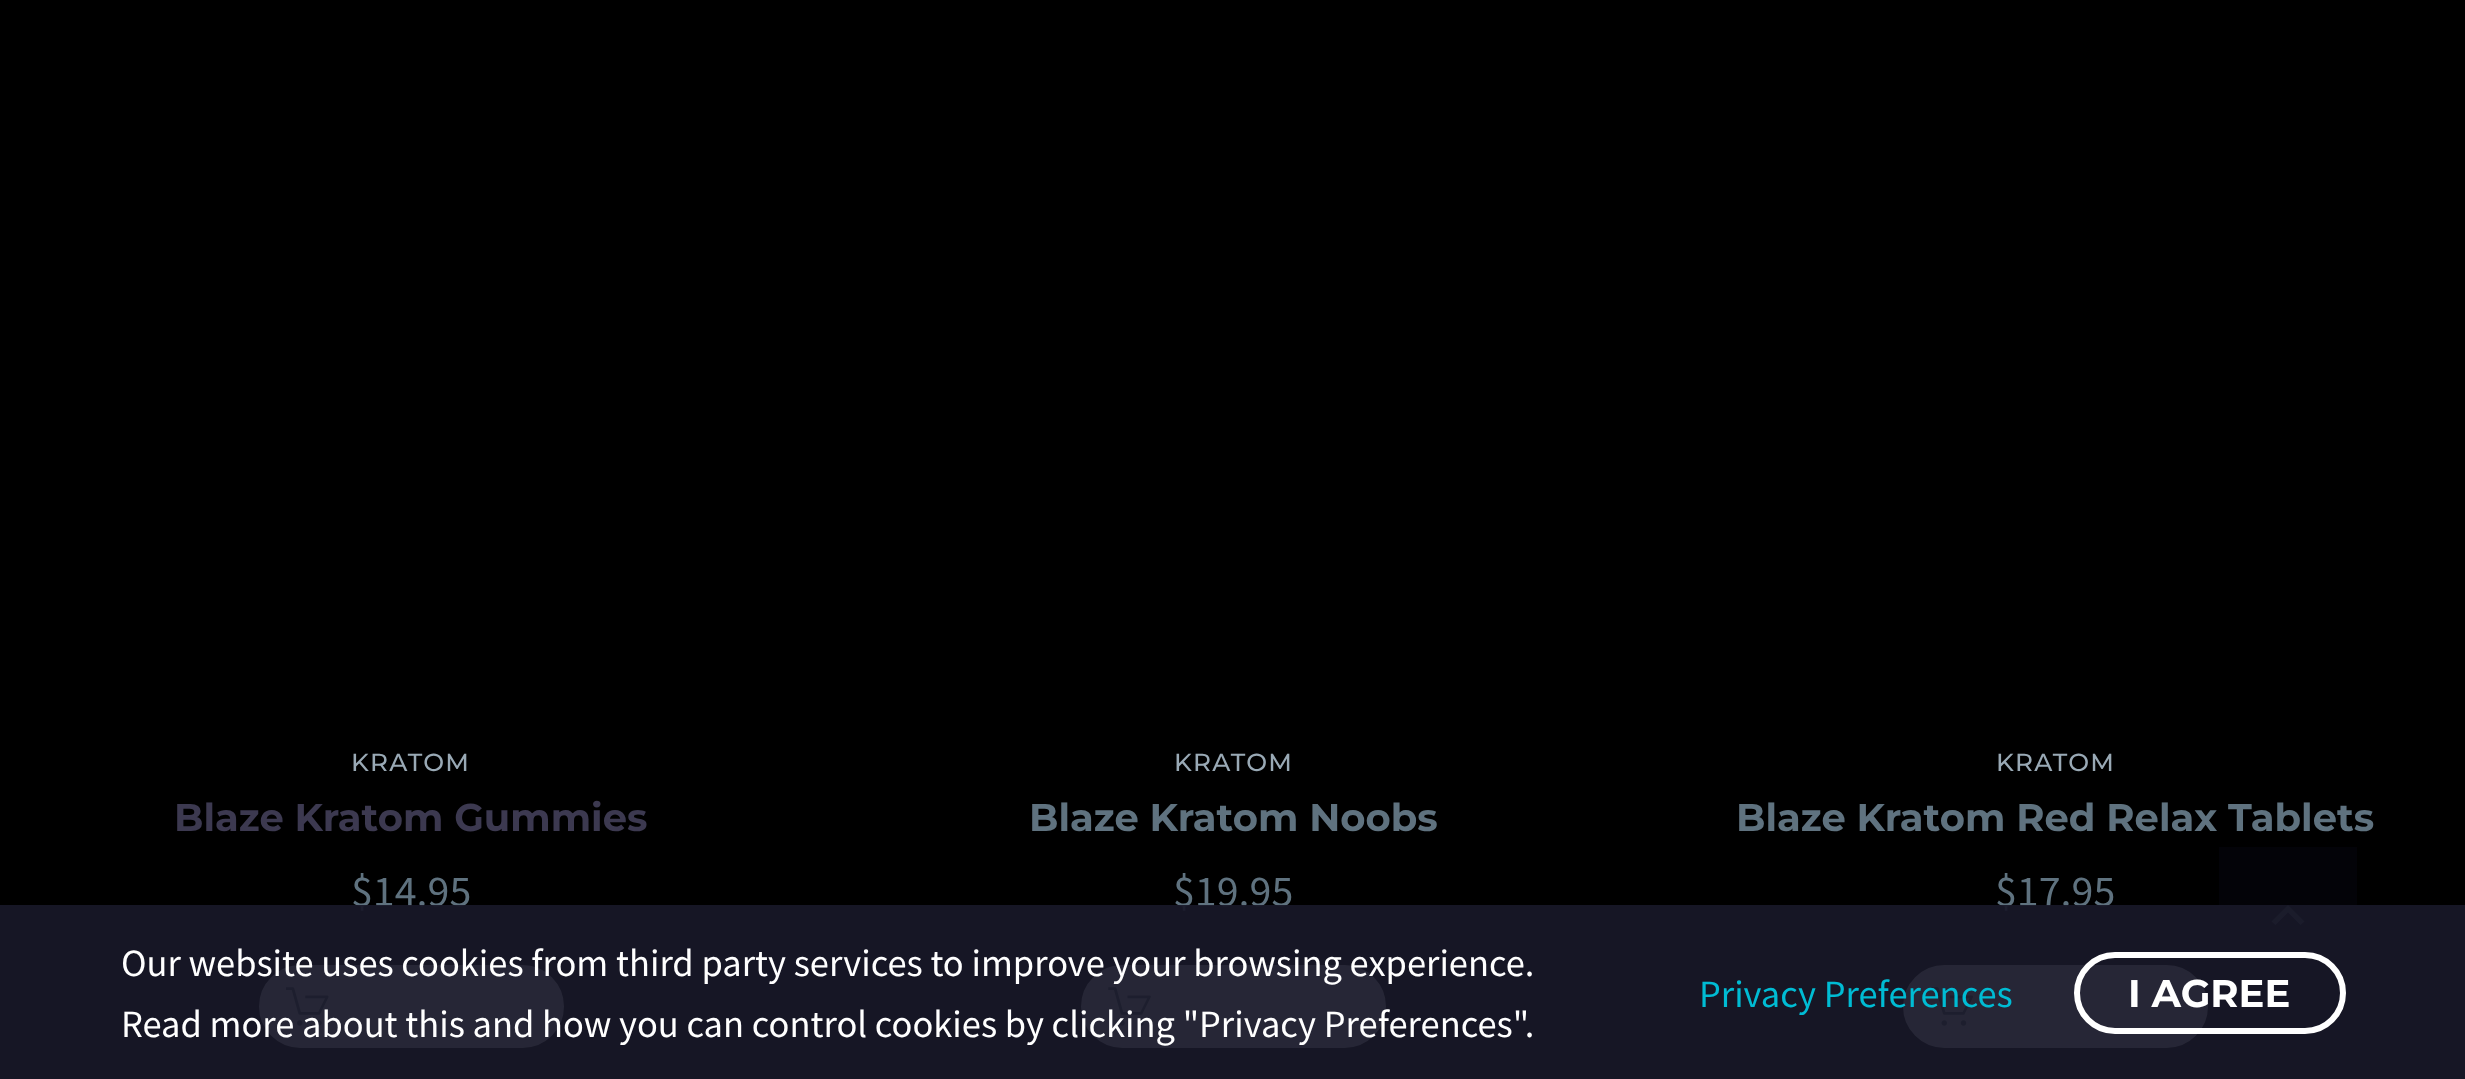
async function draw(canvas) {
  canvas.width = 2465;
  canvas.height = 1079;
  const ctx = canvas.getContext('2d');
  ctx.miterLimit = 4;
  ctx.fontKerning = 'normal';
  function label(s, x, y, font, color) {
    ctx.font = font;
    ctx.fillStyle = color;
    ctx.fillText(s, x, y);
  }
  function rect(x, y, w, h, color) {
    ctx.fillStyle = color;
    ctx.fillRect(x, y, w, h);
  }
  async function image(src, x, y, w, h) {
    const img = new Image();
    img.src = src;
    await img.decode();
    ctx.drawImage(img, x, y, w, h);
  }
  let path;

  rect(0, 0, 2465, 1079, '#000');
  ctx.letterSpacing = '1.25px';
  label('KRATOM', 351, 771, '500 24.75px Montserrat', '#99a9b5');
  ctx.letterSpacing = '0px';
  label('Blaze Kratom Gummies', 174, 831, 'bold 38.5px Montserrat', '#3c3950');
  label('$14.95', 351, 906, '44px Source Sans Pro', '#5f727f');
  ctx.fillStyle = '#dfe5e8';
  ctx.beginPath();
  ctx.roundRect(260.5, 966.5, 302, 80, 40);
  ctx.fill();
  ctx.strokeStyle = '#dfe5e8';
  ctx.lineWidth = 3;
  ctx.stroke();
  await image('assets/img1.png', 286, 987, 43, 39);
  ctx.letterSpacing = '1.25px';
  label('KRATOM', 1174, 771, '500 24.75px Montserrat', '#99a9b5');
  ctx.letterSpacing = '0px';
  label('Blaze Kratom Noobs', 1029, 831, 'bold 38.5px Montserrat', '#5f727f');
  label('$19.95', 1173, 906, '44px Source Sans Pro', '#5f727f');
  ctx.fillStyle = '#dfe5e8';
  ctx.beginPath();
  ctx.roundRect(1082.5, 966.5, 302, 80, 40);
  ctx.fill();
  ctx.stroke();
  await image('assets/img2.png', 1108, 987, 43, 39);
  ctx.letterSpacing = '1.25px';
  label('KRATOM', 1996, 771, '500 24.75px Montserrat', '#99a9b5');
  ctx.letterSpacing = '0px';
  label('Blaze Kratom Red Relax Tablets', 1736, 831, 'bold 38.5px Montserrat', '#5f727f');
  label('$17.95', 1995, 906, '44px Source Sans Pro', '#5f727f');
  ctx.fillStyle = '#dfe5e8';
  ctx.beginPath();
  ctx.roundRect(1904.5, 966.5, 302, 80, 40);
  ctx.fill();
  ctx.stroke();
  await image('assets/img3.png', 1930, 987, 43, 39);
  rect(2219, 847, 138, 138, '#030308');
  ctx.fillStyle = '#4d555b';
  path = new Path2D('M2275.5 925L2288 912.5L2300.5 925L2304.5 921.5L2288 905L2271.5 921.5Z');
  ctx.fill(path);
  rect(0, 905, 2465, 174, '#181828ed');
  label('Our website uses cookies from third party services to improve your browsing experience.', 121, 976, '38.5px Source Sans Pro', '#fff');
  label('Read more about this and how you can control cookies by clicking "Privacy Preferences".', 121, 1037, '38.5px Source Sans Pro', '#fff');
  label('Privacy Preferences', 1699, 1007, '38.5px Source Sans Pro', '#00bcd4');
  ctx.beginPath();
  ctx.roundRect(2077, 955, 266, 76, 38);
  ctx.strokeStyle = '#fff';
  ctx.lineWidth = 6;
  ctx.stroke();
  label('I AGREE', 2128, 1007, 'bold 38.5px Montserrat', '#fff');
}

draw(document.querySelector('canvas'));
